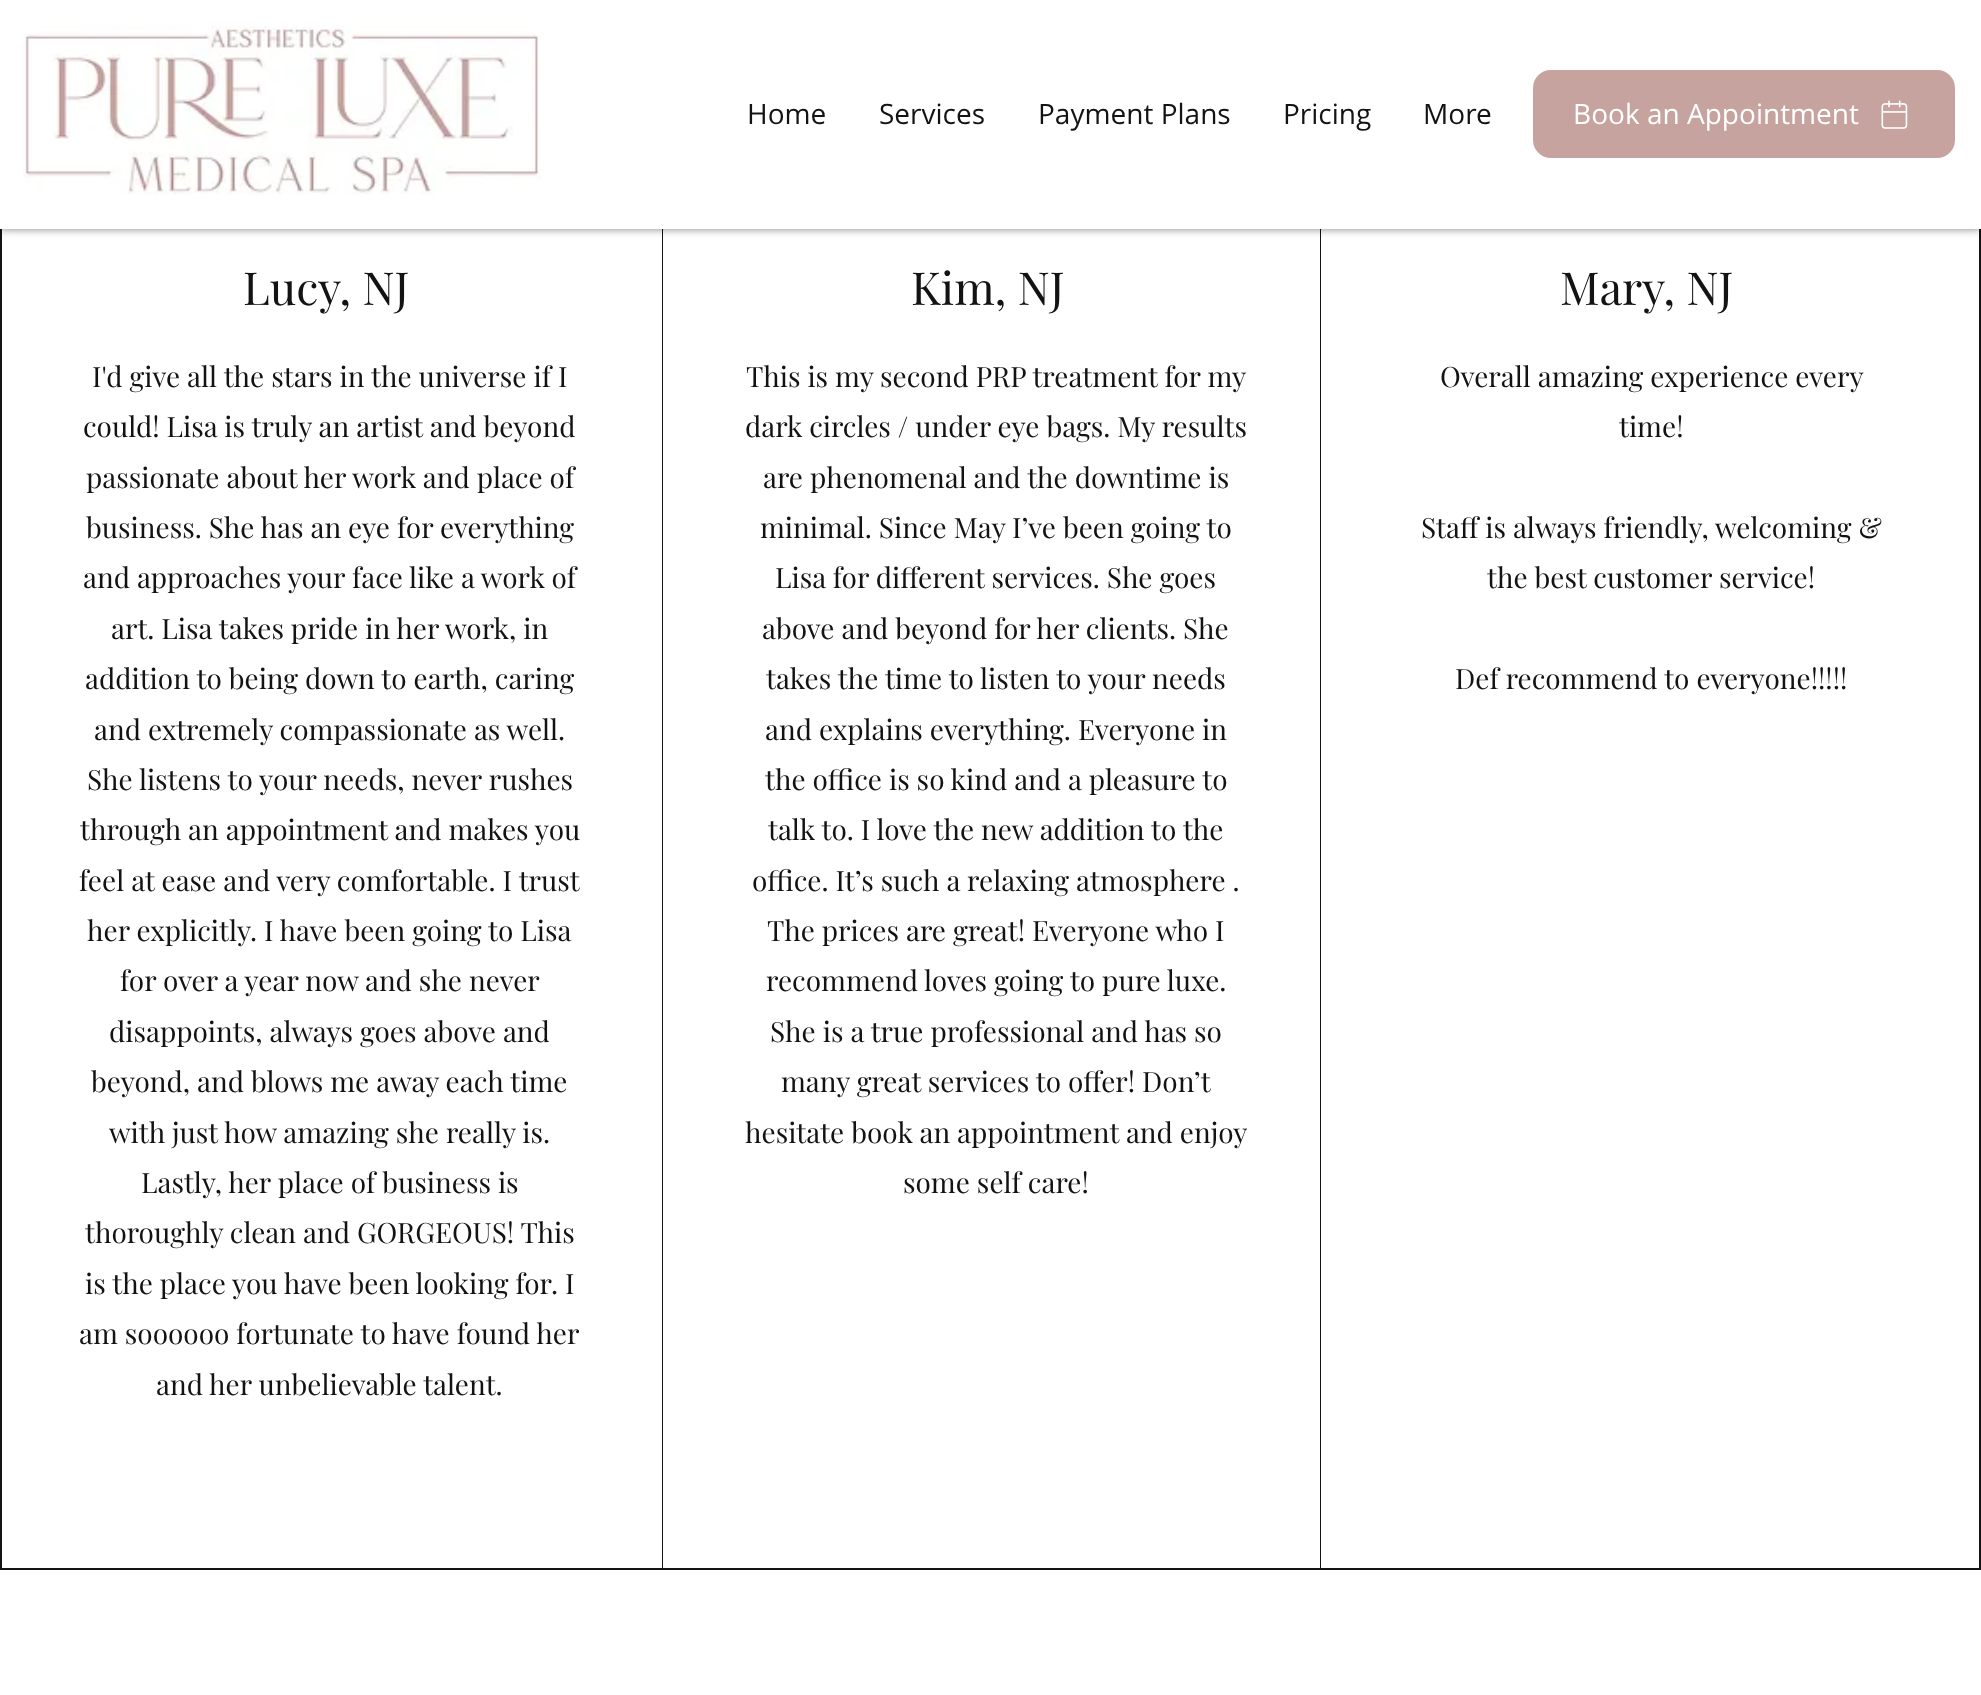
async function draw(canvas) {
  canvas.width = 1981;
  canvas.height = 1695;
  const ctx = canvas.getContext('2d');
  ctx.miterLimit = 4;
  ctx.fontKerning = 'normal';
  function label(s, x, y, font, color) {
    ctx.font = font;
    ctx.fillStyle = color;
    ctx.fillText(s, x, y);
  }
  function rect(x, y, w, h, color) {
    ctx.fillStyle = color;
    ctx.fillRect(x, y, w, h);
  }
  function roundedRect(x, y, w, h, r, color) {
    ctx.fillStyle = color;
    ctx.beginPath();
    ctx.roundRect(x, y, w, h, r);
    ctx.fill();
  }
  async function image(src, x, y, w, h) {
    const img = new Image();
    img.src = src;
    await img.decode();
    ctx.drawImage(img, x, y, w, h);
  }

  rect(0, 0, 1981, 1695, '#fff');
  rect(0, 229, 1981, 1341, '#141313');
  rect(2, 229, 660, 1339, '#fff');
  rect(663, 229, 657, 1339, '#fff');
  rect(1321, 229, 658, 1339, '#fff');
  ctx.fillStyle = '#00000080';
  ctx.filter = 'blur(4.5px)';
  ctx.beginPath();
  ctx.rect(0, 0, 1981, 229);
  ctx.fill();
  ctx.filter = 'none';
  rect(0, 0, 1981, 229, '#fff');
  await image('assets/img1.png', 23, 26, 518, 169);
  label('Home', 747, 124, '28px Open Sans', '#141313');
  label('Services', 879, 124, '28px Open Sans', '#141313');
  label('Payment Plans', 1038, 124, '28px Open Sans', '#141313');
  label('Pricing', 1283, 124, '28px Open Sans', '#141313');
  label('More', 1423, 124, '28px Open Sans', '#141313');
  roundedRect(1533, 70, 422, 88, 18, '#c6a39e');
  label('Book an Appointment', 1573, 124, '28px Open Sans', '#fff');
  await image('assets/img2.png', 1881, 100, 27, 29);
  label('Lucy, NJ', 243, 305, '45.5px Playfair Display', '#141313');
  label('I\'d give all the stars in the universe if I', 92, 387, '28px Playfair Display', '#141313');
  label('could! Lisa is truly an artist and beyond', 83, 437, '28px Playfair Display', '#141313');
  label('passionate about her work and place of', 86, 488, '28px Playfair Display', '#141313');
  label('business. She has an eye for everything', 86, 538, '28px Playfair Display', '#141313');
  label('and approaches your face like a work of', 83, 588, '28px Playfair Display', '#141313');
  label('art. Lisa takes pride in her work, in', 111, 639, '28px Playfair Display', '#141313');
  label('addition to being down to earth, caring', 85, 689, '28px Playfair Display', '#141313');
  label('and extremely compassionate as well.', 94, 740, '28px Playfair Display', '#141313');
  label('She listens to your needs, never rushes', 87, 790, '28px Playfair Display', '#141313');
  label('through an appointment and makes you', 80, 840, '28px Playfair Display', '#141313');
  label('feel at ease and very comfortable. I trust', 79, 891, '28px Playfair Display', '#141313');
  label('her explicitly. I have been going to Lisa', 87, 941, '28px Playfair Display', '#141313');
  label('for over a year now and she never', 120, 991, '28px Playfair Display', '#141313');
  label('disappoints, always goes above and', 109, 1042, '28px Playfair Display', '#141313');
  label('beyond, and blows me away each time', 91, 1092, '28px Playfair Display', '#141313');
  label('with just how amazing she really is.', 109, 1143, '28px Playfair Display', '#141313');
  label('Lastly, her place of business is', 141, 1193, '28px Playfair Display', '#141313');
  label('thoroughly clean and GORGEOUS! This', 85, 1243, '28px Playfair Display', '#141313');
  label('is the place you have been looking for. I', 85, 1294, '28px Playfair Display', '#141313');
  label('am soooooo fortunate to have found her', 79, 1344, '28px Playfair Display', '#141313');
  label('and her unbelievable talent.', 156, 1395, '28px Playfair Display', '#141313');
  label('Kim, NJ', 911, 305, '45.5px Playfair Display', '#141313');
  label('This is my second PRP treatment for my', 746, 387, '28px Playfair Display', '#141313');
  label('dark circles / under eye bags. My results', 745, 437, '28px Playfair Display', '#141313');
  label('are phenomenal and the downtime is', 763, 488, '28px Playfair Display', '#141313');
  label('minimal. Since May I’ve been going to', 760, 538, '28px Playfair Display', '#141313');
  label('Lisa for different services. She goes', 775, 588, '28px Playfair Display', '#141313');
  label('above and beyond for her clients. She', 762, 639, '28px Playfair Display', '#141313');
  label('takes the time to listen to your needs', 766, 689, '28px Playfair Display', '#141313');
  label('and explains everything. Everyone in', 765, 740, '28px Playfair Display', '#141313');
  label('the office is so kind and a pleasure to', 765, 790, '28px Playfair Display', '#141313');
  label('talk to. I love the new addition to the', 768, 840, '28px Playfair Display', '#141313');
  label('office. It’s such a relaxing atmosphere .', 752, 891, '28px Playfair Display', '#141313');
  label('The prices are great! Everyone who I', 767, 941, '28px Playfair Display', '#141313');
  label('recommend loves going to pure luxe.', 766, 991, '28px Playfair Display', '#141313');
  label('She is a true professional and has so', 770, 1042, '28px Playfair Display', '#141313');
  label('many great services to offer! Don’t', 781, 1092, '28px Playfair Display', '#141313');
  label('hesitate book an appointment and enjoy', 745, 1143, '28px Playfair Display', '#141313');
  label('some self care!', 903, 1193, '28px Playfair Display', '#141313');
  label('Mary, NJ', 1560, 305, '45.5px Playfair Display', '#141313');
  label('Overall amazing experience every', 1440, 387, '28px Playfair Display', '#141313');
  label('time!', 1619, 437, '28px Playfair Display', '#141313');
  label('Staff is always friendly, welcoming &', 1421, 538, '28px Playfair Display', '#141313');
  label('the best customer service!', 1487, 588, '28px Playfair Display', '#141313');
  label('Def recommend to everyone!!!!!', 1455, 689, '28px Playfair Display', '#141313');
}

draw(document.querySelector('canvas'));
